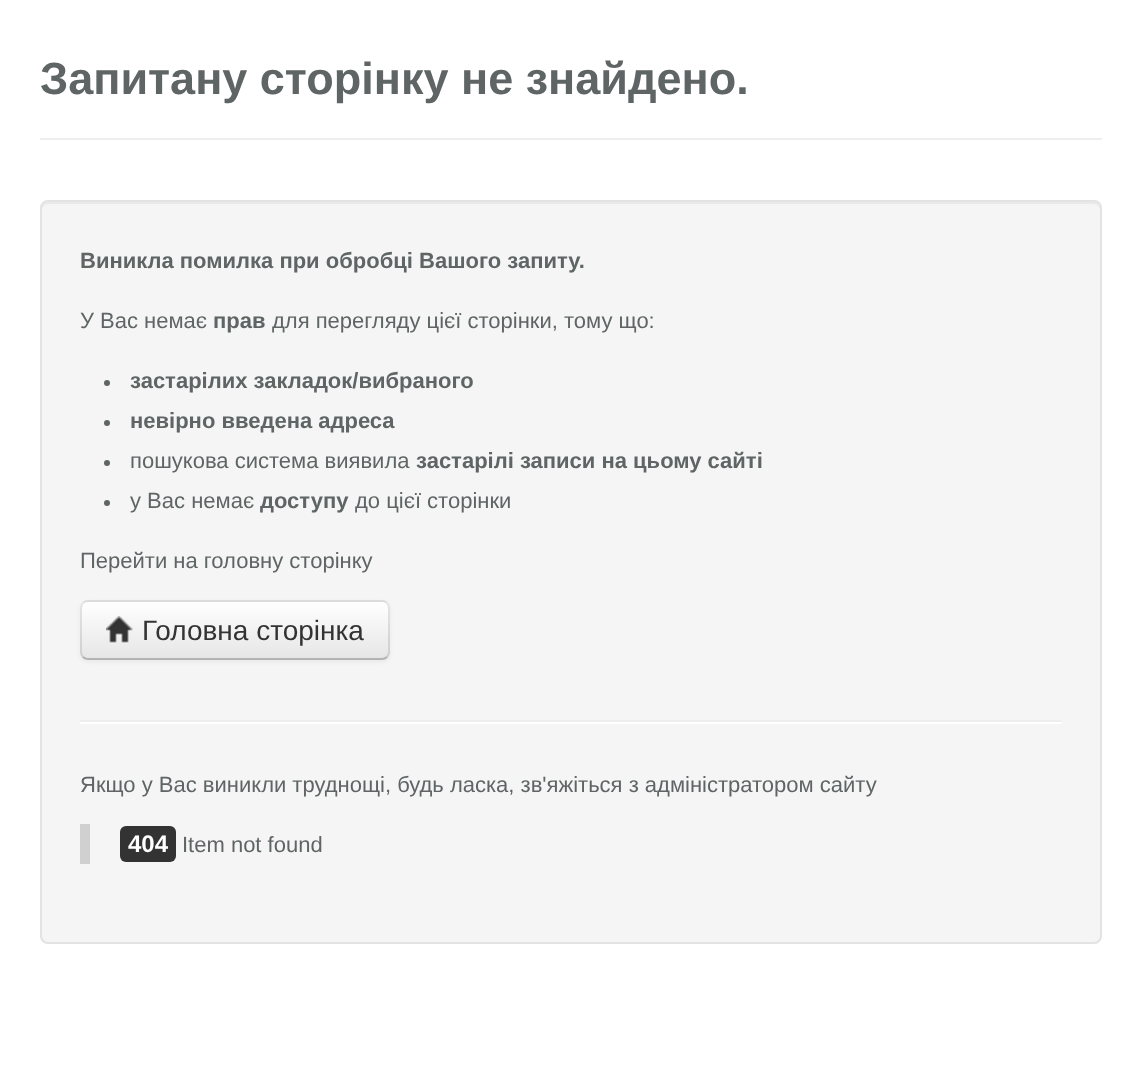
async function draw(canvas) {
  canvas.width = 1142;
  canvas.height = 1091;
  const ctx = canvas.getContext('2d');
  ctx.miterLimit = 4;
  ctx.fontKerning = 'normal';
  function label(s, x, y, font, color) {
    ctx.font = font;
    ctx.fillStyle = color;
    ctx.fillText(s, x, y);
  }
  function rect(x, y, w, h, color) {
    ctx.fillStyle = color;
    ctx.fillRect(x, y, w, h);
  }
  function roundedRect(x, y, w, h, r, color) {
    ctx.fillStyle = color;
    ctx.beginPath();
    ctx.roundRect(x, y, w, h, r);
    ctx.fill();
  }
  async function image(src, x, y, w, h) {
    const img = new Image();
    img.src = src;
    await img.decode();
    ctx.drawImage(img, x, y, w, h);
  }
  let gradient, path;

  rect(0, 0, 1142, 1091, '#fff');
  rect(40, 138, 1062, 2, '#eee');
  label('Запитану сторінку не знайдено.', 40, 94, 'bold 45px Liberation Sans', '#5f6565');
  roundedRect(40, 200, 1062, 744, 8, '#f5f5f5');
  ctx.fillStyle = '#e9e9e9';
  path = new Path2D('M48 204H1094C1097 204 1100 207 1100 210V208C1100 205 1097 202 1094 202H48C45 202 42 205 42 208V210C42 207 45 204 48 204Z');
  ctx.fill(path);
  ctx.beginPath();
  ctx.roundRect(41, 201, 1060, 742, 7);
  ctx.strokeStyle = '#e3e3e3';
  ctx.lineWidth = 2;
  ctx.stroke();
  label('Виникла помилка при обробці Вашого запиту.', 80, 268, 'bold 22px Liberation Sans', '#5f6565');
  label('У Вас немає', 80, 328, '22px Liberation Sans', '#5f6565');
  label('прав', 213, 328, 'bold 22px Liberation Sans', '#5f6565');
  label('для перегляду цієї сторінки, тому що:', 272, 328, '22px Liberation Sans', '#5f6565');
  ctx.beginPath();
  ctx.arc(107, 383, 3, 0, 2 * Math.PI);
  ctx.fill();
  label('застарілих закладок/вибраного', 130, 388, 'bold 22px Liberation Sans', '#5f6565');
  ctx.beginPath();
  ctx.arc(107, 423, 3, 0, 2 * Math.PI);
  ctx.fill();
  label('невірно введена адреса', 130, 428, 'bold 22px Liberation Sans', '#5f6565');
  ctx.beginPath();
  ctx.arc(107, 463, 3, 0, 2 * Math.PI);
  ctx.fill();
  label('пошукова система виявила', 130, 468, '22px Liberation Sans', '#5f6565');
  label('застарілі записи на цьому сайті', 416, 468, 'bold 22px Liberation Sans', '#5f6565');
  ctx.beginPath();
  ctx.arc(107, 503, 3, 0, 2 * Math.PI);
  ctx.fill();
  label('у Вас немає', 130, 508, '22px Liberation Sans', '#5f6565');
  label('доступу', 260, 508, 'bold 22px Liberation Sans', '#5f6565');
  label('до цієї сторінки', 355, 508, '22px Liberation Sans', '#5f6565');
  label('Перейти на головну сторінку', 80, 568, '22px Liberation Sans', '#5f6565');
  ctx.fillStyle = '#0000000d';
  ctx.filter = 'blur(2px)';
  ctx.beginPath();
  ctx.roundRect(80, 602, 310, 60, 8);
  ctx.fill();
  ctx.filter = 'none';
  roundedRect(80, 600, 310, 60, 8, '#f5f5f5');
  ctx.save();
  ctx.beginPath();
  ctx.roundRect(80, 600, 310, 60, 8);
  ctx.clip();
  gradient = ctx.createLinearGradient(235, 602, 235, 658);
  gradient.addColorStop(0, '#fff');
  gradient.addColorStop(1, '#e6e6e6');
  ctx.fillStyle = gradient;
  ctx.fillRect(80, 602, 310, 56);
  ctx.restore();
  path = new Path2D('M387 657C385.5 658.5 384 659 382 659H88C86 659 84.5 658.5 83 657');
  ctx.strokeStyle = '#b3b3b3';
  ctx.stroke(path);
  path = new Path2D('M83 657C81.5 655.5 81 654 81 652V608C81 606 81.5 604.5 83 603C84.5 601.5 86 601 88 601H382C384 601 385.5 601.5 387 603C388.5 604.5 389 606 389 608V652C389 654 388.5 655.5 387 657');
  ctx.strokeStyle = '#0000001a';
  ctx.stroke(path);
  await image('assets/img1.png', 106, 616, 27, 28);
  label('Головна сторінка', 142, 640, '28px Liberation Sans', '#333');
  rect(80, 720, 982, 2, '#eee');
  rect(80, 722, 982, 2, '#fff');
  label('Якщо у Вас виникли труднощі, будь ласка, зв\'яжіться з адміністратором сайту', 80, 792, '22px Liberation Sans', '#5f6565');
  rect(80, 824, 10, 40, '#d0d0d0');
  roundedRect(120, 826, 56, 36, 6, '#333');
  label('404', 128, 852, 'bold 24px Liberation Sans', '#fff');
  label('Item not found', 182, 852, '22px Liberation Sans', '#5f6565');
}

draw(document.querySelector('canvas'));
